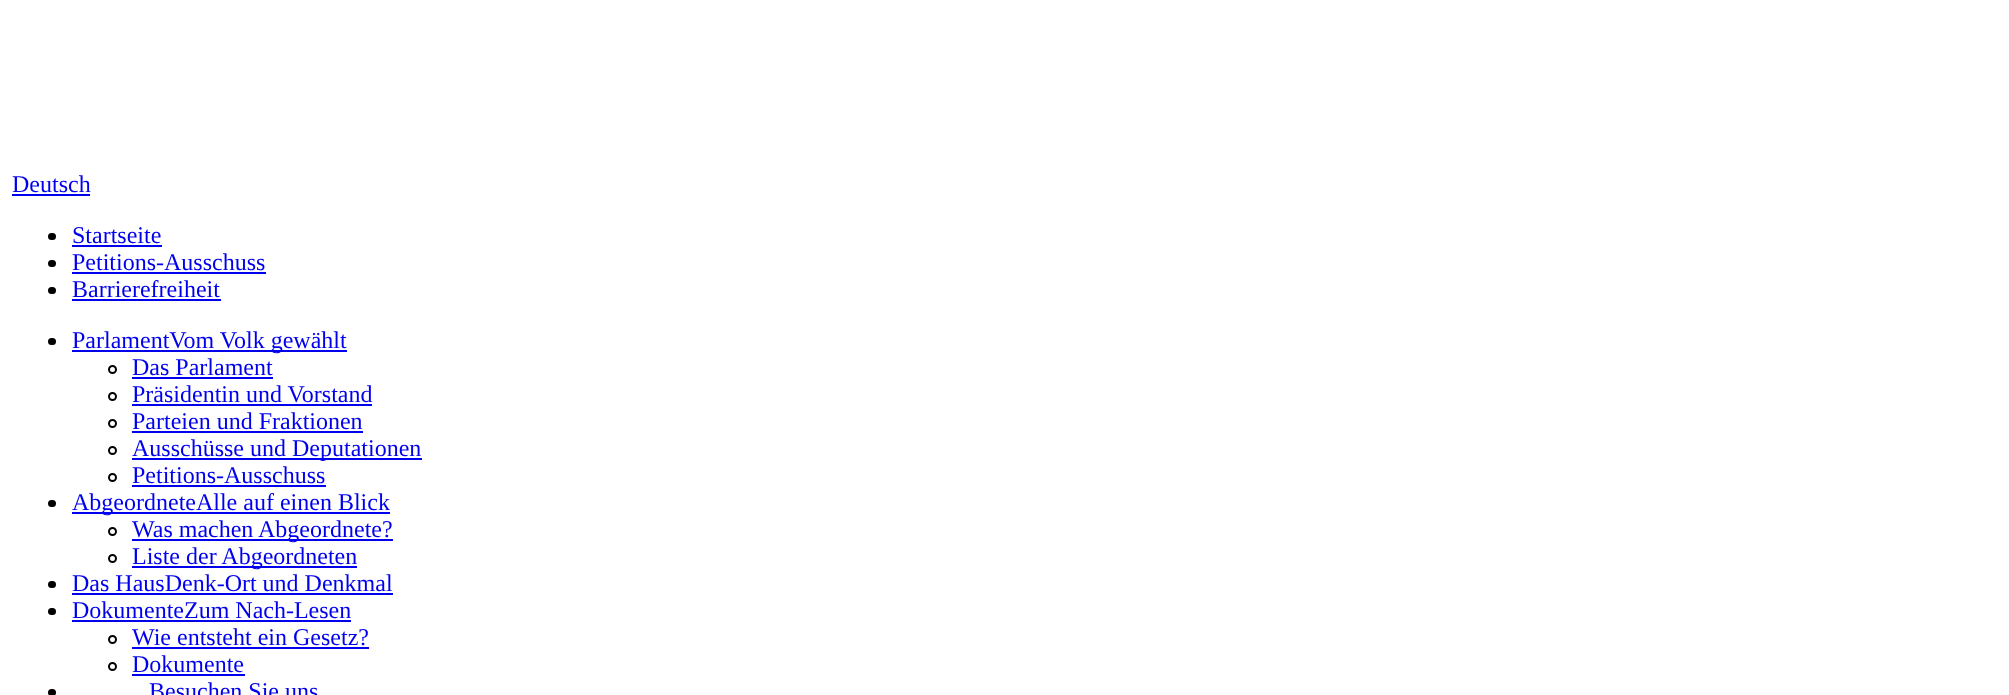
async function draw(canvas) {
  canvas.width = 2009;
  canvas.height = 695;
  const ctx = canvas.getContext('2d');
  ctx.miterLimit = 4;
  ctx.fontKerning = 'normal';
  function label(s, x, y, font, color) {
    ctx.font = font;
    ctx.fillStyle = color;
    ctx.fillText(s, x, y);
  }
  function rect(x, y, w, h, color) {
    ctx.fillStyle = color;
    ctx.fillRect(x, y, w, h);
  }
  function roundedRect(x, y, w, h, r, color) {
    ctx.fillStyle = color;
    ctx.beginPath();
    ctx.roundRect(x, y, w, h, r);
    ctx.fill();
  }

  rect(0, 0, 2009, 695, '#fff');
  label('Deutsch', 12, 192, '24px Liberation Serif', '#00e');
  rect(12, 194, 78, 2, '#00e');
  roundedRect(48, 233, 8, 7, 3.5, '#000');
  label('Startseite', 72, 243, '24px Liberation Serif', '#00e');
  rect(72, 245, 90, 2, '#00e');
  roundedRect(48, 260, 8, 7, 3.5, '#000');
  label('Petitions-Ausschuss', 72, 270, '24px Liberation Serif', '#00e');
  rect(72, 272, 194, 2, '#00e');
  roundedRect(48, 287, 8, 7, 3.5, '#000');
  label('Barrierefreiheit', 72, 297, '24px Liberation Serif', '#00e');
  rect(72, 299, 149, 2, '#00e');
  roundedRect(48, 338, 8, 7, 3.5, '#000');
  rect(72, 350, 275, 2, '#00e');
  label('ParlamentVom Volk gewählt', 72, 348, '24px Liberation Serif', '#00e');
  ctx.beginPath();
  ctx.arc(112.5, 369.5, 3.5, 0, 2 * Math.PI);
  ctx.strokeStyle = '#000';
  ctx.lineWidth = 2;
  ctx.stroke();
  label('Das Parlament', 132, 375, '24px Liberation Serif', '#00e');
  rect(132, 377, 141, 2, '#00e');
  ctx.beginPath();
  ctx.arc(112.5, 396.5, 3.5, 0, 2 * Math.PI);
  ctx.stroke();
  label('Präsidentin und Vorstand', 132, 402, '24px Liberation Serif', '#00e');
  rect(132, 404, 240, 2, '#00e');
  ctx.beginPath();
  ctx.arc(112.5, 423.5, 3.5, 0, 2 * Math.PI);
  ctx.stroke();
  label('Parteien und Fraktionen', 132, 429, '24px Liberation Serif', '#00e');
  rect(132, 431, 231, 2, '#00e');
  ctx.beginPath();
  ctx.arc(112.5, 450.5, 3.5, 0, 2 * Math.PI);
  ctx.stroke();
  rect(132, 458, 290, 2, '#00e');
  label('Ausschüsse und Deputationen', 132, 456, '24px Liberation Serif', '#00e');
  ctx.beginPath();
  ctx.arc(112.5, 477.5, 3.5, 0, 2 * Math.PI);
  ctx.stroke();
  label('Petitions-Ausschuss', 132, 483, '24px Liberation Serif', '#00e');
  rect(132, 485, 194, 2, '#00e');
  roundedRect(48, 500, 8, 7, 3.5, '#000');
  rect(72, 512, 318, 2, '#00e');
  label('AbgeordneteAlle auf einen Blick', 72, 510, '24px Liberation Serif', '#00e');
  ctx.beginPath();
  ctx.arc(112.5, 531.5, 3.5, 0, 2 * Math.PI);
  ctx.stroke();
  rect(132, 539, 261, 2, '#00e');
  label('Was machen Abgeordnete?', 132, 537, '24px Liberation Serif', '#00e');
  ctx.beginPath();
  ctx.arc(112.5, 558.5, 3.5, 0, 2 * Math.PI);
  ctx.stroke();
  rect(132, 566, 225, 2, '#00e');
  label('Liste der Abgeordneten', 132, 564, '24px Liberation Serif', '#00e');
  roundedRect(48, 581, 8, 7, 3.5, '#000');
  label('Das HausDenk-Ort und Denkmal', 72, 591, '24px Liberation Serif', '#00e');
  rect(72, 593, 321, 2, '#00e');
  roundedRect(48, 608, 8, 7, 3.5, '#000');
  label('DokumenteZum Nach-Lesen', 72, 618, '24px Liberation Serif', '#00e');
  rect(72, 620, 279, 2, '#00e');
  ctx.beginPath();
  ctx.arc(112.5, 639.5, 3.5, 0, 2 * Math.PI);
  ctx.stroke();
  label('Wie entsteht ein Gesetz?', 132, 645, '24px Liberation Serif', '#00e');
  rect(132, 647, 237, 2, '#00e');
  ctx.beginPath();
  ctx.arc(112.5, 666.5, 3.5, 0, 2 * Math.PI);
  ctx.stroke();
  label('Dokumente', 132, 672, '24px Liberation Serif', '#00e');
  rect(132, 674, 113, 2, '#00e');
  roundedRect(48, 689, 8, 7, 3.5, '#000');
  label('Besuchen Sie uns', 149, 699, '24px Liberation Serif', '#00e');
}

draw(document.querySelector('canvas'));
